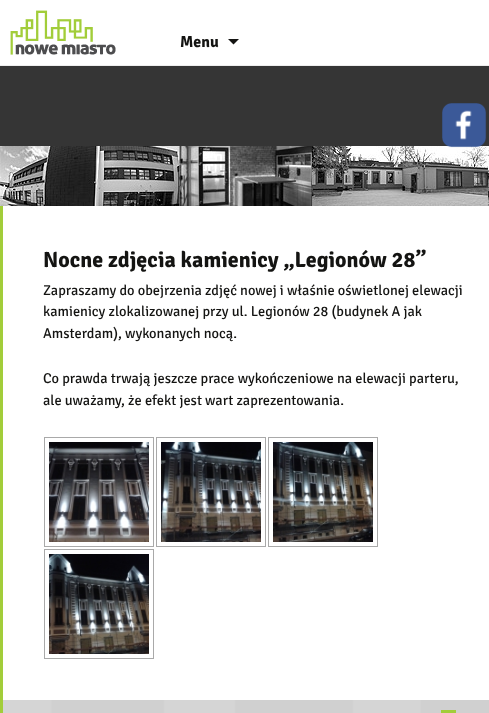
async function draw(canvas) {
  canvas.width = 489;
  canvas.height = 713;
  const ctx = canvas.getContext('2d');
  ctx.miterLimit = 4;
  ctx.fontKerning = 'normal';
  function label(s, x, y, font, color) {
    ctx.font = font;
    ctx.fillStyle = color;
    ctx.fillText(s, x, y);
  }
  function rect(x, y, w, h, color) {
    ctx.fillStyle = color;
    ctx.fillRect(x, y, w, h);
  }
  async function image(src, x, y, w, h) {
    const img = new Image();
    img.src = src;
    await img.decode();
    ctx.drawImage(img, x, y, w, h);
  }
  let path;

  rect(0, 0, 489, 713, '#fff');
  await image('assets/img1.png', 3, 700, 486, 13);
  rect(0, 65, 489, 1, '#eee');
  await image('assets/img2.png', 10, 10, 106, 45);
  label('Menu', 180, 47, 'bold 16px Signika', '#141412');
  path = new Path2D('M228 39L233.5 44.5L239 39Z');
  ctx.fill(path);
  await image('assets/img3.png', 0, 66, 489, 140);
  label('Nocne zdjęcia kamienicy „Legionów 28”', 43, 267, 'bold 22px Signika', '#141412');
  label('Zapraszamy do obejrzenia zdjęć nowej i właśnie oświetlonej elewacji', 43, 295, '14.4px Signika', '#141412');
  label('kamienicy zlokalizowanej przy ul. Legionów 28 (budynek A jak', 43, 316, '14.4px Signika', '#141412');
  label('Amsterdam), wykonanych nocą.', 43, 338, '14.4px Signika', '#141412');
  label('Co prawda trwają jeszcze prace wykończeniowe na elewacji parteru,', 43, 383, '14.4px Signika', '#141412');
  label('ale uważamy, że efekt jest wart zaprezentowania.', 43, 405, '14.4px Signika', '#141412');
  ctx.strokeStyle = '#a9a9a9';
  ctx.strokeRect(44.5, 437.5, 109, 109);
  await image('assets/img4.png', 49, 442, 100, 100);
  ctx.strokeRect(156.5, 437.5, 109, 109);
  await image('assets/img5.png', 161, 442, 100, 100);
  ctx.strokeRect(268.5, 437.5, 109, 109);
  await image('assets/img6.png', 273, 442, 100, 100);
  ctx.strokeRect(44.5, 549.5, 109, 109);
  await image('assets/img7.png', 49, 554, 100, 100);
  await image('assets/img8.png', 442, 103, 45, 45);
  rect(441, 710, 15, 3, '#a2cd3a');
  rect(0, 206, 3, 507, '#a2cd3a');
}

draw(document.querySelector('canvas'));
